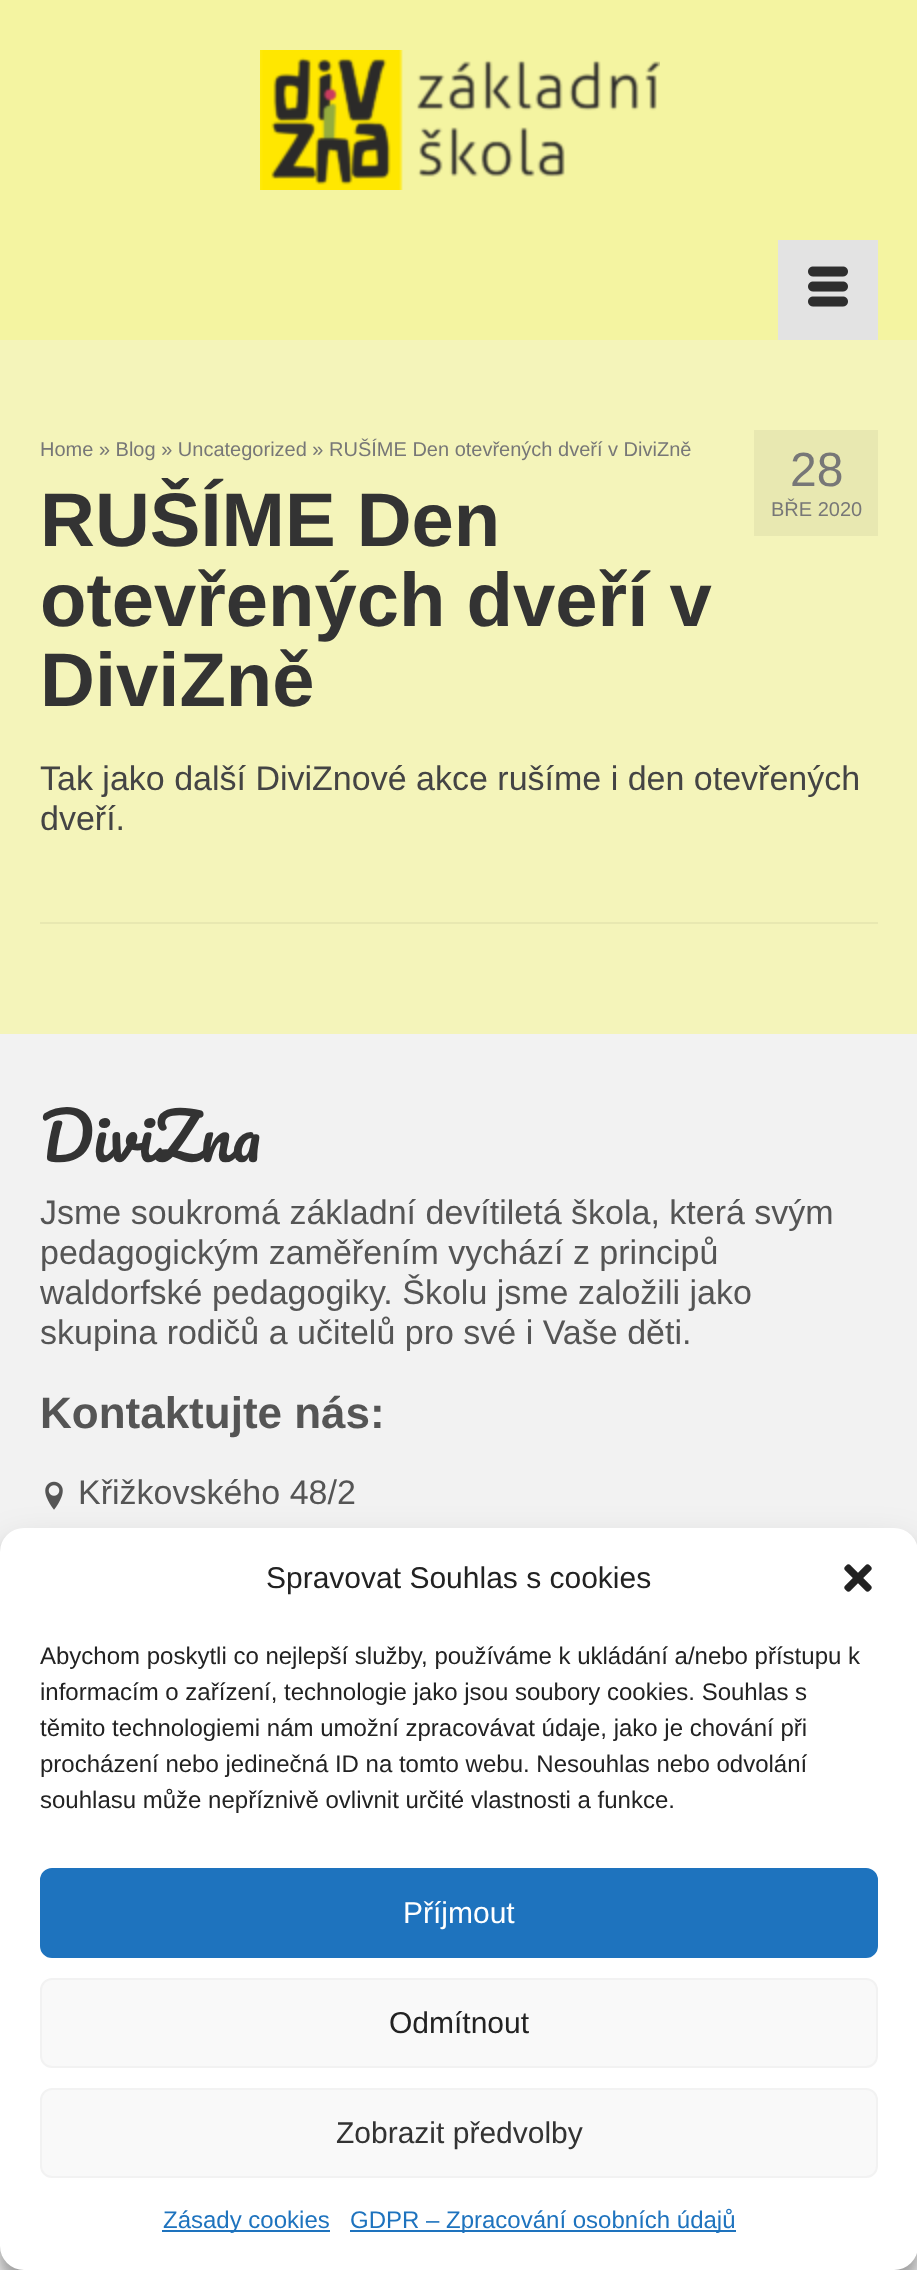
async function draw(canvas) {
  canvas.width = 917;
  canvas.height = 2270;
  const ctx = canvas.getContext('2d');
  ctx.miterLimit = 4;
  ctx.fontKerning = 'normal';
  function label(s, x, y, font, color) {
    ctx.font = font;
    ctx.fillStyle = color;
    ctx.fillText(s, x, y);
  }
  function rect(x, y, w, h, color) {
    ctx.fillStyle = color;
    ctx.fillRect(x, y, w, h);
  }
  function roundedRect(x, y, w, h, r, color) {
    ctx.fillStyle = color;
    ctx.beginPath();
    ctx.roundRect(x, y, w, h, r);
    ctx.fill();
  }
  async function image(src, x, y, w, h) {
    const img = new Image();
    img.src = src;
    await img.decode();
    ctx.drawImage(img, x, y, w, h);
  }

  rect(0, 0, 917, 2270, '#f4f4ba');
  rect(0, 0, 917, 340, '#f4f4a1');
  await image('assets/img1.png', 260, 50, 400, 140);
  rect(778, 240, 100, 100, '#e3e3e3');
  await image('assets/img2.png', 808, 266, 40, 41);
  label('Home » Blog » Uncategorized » RUŠÍME Den otevřených dveří v DiviZně', 40, 456, '20px Liberation Sans', '#777');
  label('RUŠÍME Den', 40, 546, 'bold 76px Liberation Sans', '#333');
  label('otevřených dveří v', 40, 626, 'bold 76px Liberation Sans', '#333');
  label('DiviZně', 40, 706, 'bold 76px Liberation Sans', '#333');
  rect(754, 430, 124, 106, '#e8e8b1');
  label('28', 790, 486, '48px Liberation Sans', '#777');
  label('BŘE 2020', 771, 516, '20px Liberation Sans', '#777');
  label('Tak jako další DiviZnové akce rušíme i den otevřených', 40, 790, '34px Liberation Sans', '#444');
  label('dveří.', 40, 830, '34px Liberation Sans', '#444');
  rect(40, 922, 838, 2, '#e8e8b1');
  rect(0, 1034, 917, 1236, '#f2f2f2');
  label('DiviZna', 40, 1162, '64px Pacifico', '#333');
  label('Jsme soukromá základní devítiletá škola, která svým', 40, 1224, '34px Liberation Sans', '#555');
  label('pedagogickým zaměřením vychází z principů', 40, 1264, '34px Liberation Sans', '#555');
  label('waldorfské pedagogiky. Školu jsme založili jako', 40, 1304, '34px Liberation Sans', '#555');
  label('skupina rodičů a učitelů pro své i Vaše děti.', 40, 1344, '34px Liberation Sans', '#555');
  label('Kontaktujte nás:', 40, 1428, 'bold 44px Liberation Sans', '#555');
  await image('assets/img3.png', 45, 1481, 18, 29);
  label('Křižkovského 48/2', 78, 1504, '34px Liberation Sans', '#555');
  ctx.fillStyle = '#0000003b';
  ctx.filter = 'blur(6px)';
  ctx.beginPath();
  ctx.roundRect(0, 1540, 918, 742, 24);
  ctx.fill();
  ctx.filter = 'none';
  ctx.fillStyle = '#00000030';
  ctx.filter = 'blur(20px)';
  ctx.beginPath();
  ctx.roundRect(0, 1548, 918, 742, 24);
  ctx.fill();
  ctx.filter = 'none';
  roundedRect(0, 1528, 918, 742, 24, '#fff');
  label('Spravovat Souhlas s cookies', 266, 1588, '30px Liberation Sans', '#222');
  await image('assets/img4.png', 844, 1564, 28, 28);
  label('Abychom poskytli co nejlepší služby, používáme k ukládání a/nebo přístupu k', 40, 1664, '24px Liberation Sans', '#222');
  label('informacím o zařízení, technologie jako jsou soubory cookies. Souhlas s', 40, 1700, '24px Liberation Sans', '#222');
  label('těmito technologiemi nám umožní zpracovávat údaje, jako je chování při', 40, 1736, '24px Liberation Sans', '#222');
  label('procházení nebo jedinečná ID na tomto webu. Nesouhlas nebo odvolání', 40, 1772, '24px Liberation Sans', '#222');
  label('souhlasu může nepříznivě ovlivnit určité vlastnosti a funkce.', 40, 1808, '24px Liberation Sans', '#222');
  ctx.fillStyle = '#1e73be';
  ctx.beginPath();
  ctx.roundRect(41, 1869, 836, 88, 11);
  ctx.fill();
  ctx.strokeStyle = '#1e73be';
  ctx.lineWidth = 2;
  ctx.stroke();
  label('Příjmout', 403, 1923, '30px Liberation Sans', '#fff');
  ctx.fillStyle = '#f9f9f9';
  ctx.beginPath();
  ctx.roundRect(41, 1979, 836, 88, 11);
  ctx.fill();
  ctx.strokeStyle = '#f2f2f2';
  ctx.stroke();
  label('Odmítnout', 389, 2033, '30px Liberation Sans', '#222');
  ctx.fillStyle = '#f9f9f9';
  ctx.beginPath();
  ctx.roundRect(41, 2089, 836, 88, 11);
  ctx.fill();
  ctx.stroke();
  label('Zobrazit předvolby', 336, 2143, '30px Liberation Sans', '#333');
  rect(162, 2230, 168, 2, '#1e73be');
  label('Zásady cookies', 163, 2228, '24px Liberation Sans', '#1e73be');
  rect(350, 2230, 386, 2, '#1e73be');
  label('GDPR – Zpracování osobních údajů', 350, 2228, '24px Liberation Sans', '#1e73be');
}

draw(document.querySelector('canvas'));
